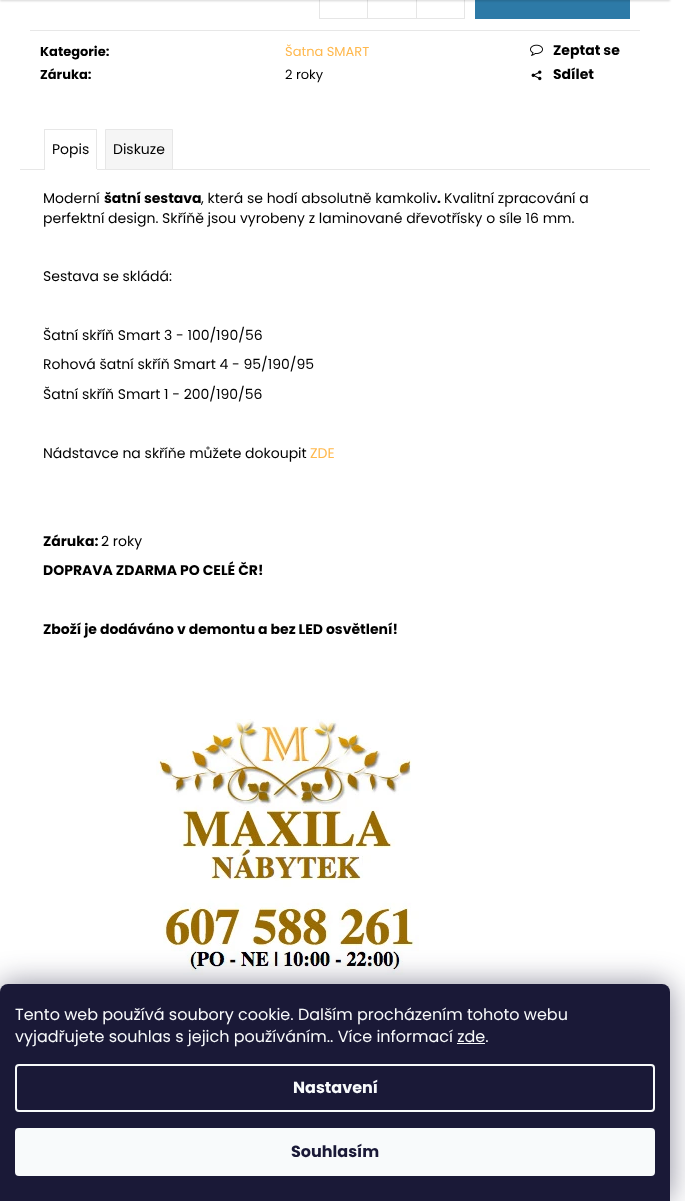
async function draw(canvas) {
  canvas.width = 685;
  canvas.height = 1201;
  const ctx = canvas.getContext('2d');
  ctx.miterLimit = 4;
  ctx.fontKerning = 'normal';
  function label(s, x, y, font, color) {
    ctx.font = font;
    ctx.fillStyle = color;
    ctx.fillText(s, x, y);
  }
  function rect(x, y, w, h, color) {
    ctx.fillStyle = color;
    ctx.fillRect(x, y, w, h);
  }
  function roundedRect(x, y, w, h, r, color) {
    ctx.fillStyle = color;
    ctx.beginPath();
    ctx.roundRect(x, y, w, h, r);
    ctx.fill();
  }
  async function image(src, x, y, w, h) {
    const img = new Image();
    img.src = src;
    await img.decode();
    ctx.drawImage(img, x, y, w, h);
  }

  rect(0, 0, 685, 1201, '#fff');
  ctx.strokeStyle = '#e6e6e6';
  ctx.strokeRect(319.5, -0.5, 145, 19);
  rect(367, 0, 1, 18, '#e6e6e6');
  rect(416, 0, 1, 18, '#e6e6e6');
  rect(475, 0, 155, 19, '#2d7aa7');
  ctx.fillStyle = '#00000029';
  ctx.filter = 'blur(1px)';
  ctx.beginPath();
  ctx.rect(0, -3, 670, 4);
  ctx.fill();
  ctx.filter = 'none';
  rect(30, 30, 610, 1, '#e7e7e7');
  label('Kategorie:', 40, 56, 'bold 13px Poppins', '#000');
  label('Šatna SMART', 285, 56, '13px Poppins', '#ffb84d');
  label('Záruka:', 40, 79, 'bold 13px Poppins', '#000');
  label('2 roky', 285, 79, '13px Poppins', '#000');
  await image('assets/img1.png', 530, 44, 13, 12);
  label('Zeptat se', 553, 55, 'bold 14px Poppins', '#000');
  await image('assets/img2.png', 531, 70, 11, 11);
  label('Sdílet', 553, 79, 'bold 14px Poppins', '#000');
  rect(20, 169, 630, 1, '#e7e7e7');
  rect(44, 129, 53, 1, '#e7e7e7');
  rect(96, 129, 1, 41, '#e7e7e7');
  rect(44, 169, 53, 1, '#fff');
  rect(44, 129, 1, 41, '#e7e7e7');
  label('Popis', 52, 154, '14px Poppins', '#000');
  ctx.fillStyle = '#f5f5f5';
  ctx.beginPath();
  ctx.rect(105.5, 129.5, 67, 40);
  ctx.fill();
  ctx.strokeStyle = '#e7e7e7';
  ctx.stroke();
  label('Diskuze', 113, 154, '14px Poppins', '#000');
  label('Moderní', 43, 203, '14px Poppins', '#000');
  label('šatní sestava', 104, 203, 'bold 14px Poppins', '#000');
  label(', která se hodí absolutně kamkoliv', 201, 203, '14px Poppins', '#000');
  label('.', 437, 203, 'bold 14px Poppins', '#000');
  label('Kvalitní zpracování a', 444, 203, '14px Poppins', '#000');
  label('perfektní design. Skříňě jsou vyrobeny z laminované dřevotřísky o síle 16 mm.', 43, 223, '14px Poppins', '#000');
  label('Sestava se skládá:', 43, 281, '14px Poppins', '#000');
  label('Šatní skříň Smart 3 - 100/190/56', 43, 340, '14px Poppins', '#000');
  label('Rohová šatní skříň Smart 4 - 95/190/95', 43, 369, '14px Poppins', '#000');
  label('Šatní skříň Smart 1 - 200/190/56', 43, 399, '14px Poppins', '#000');
  label('Nádstavce na skříňe můžete dokoupit', 43, 458, '14px Poppins', '#000');
  label('ZDE', 310, 458, '14px Poppins', '#ffb84d');
  label('Záruka:', 43, 546, 'bold 14px Poppins', '#000');
  label('2 roky', 101, 546, '14px Poppins', '#000');
  label('DOPRAVA ZDARMA PO CELÉ ČR!', 43, 575, 'bold 14px Poppins', '#000');
  label('Zboží je dodáváno v demontu a bez LED osvětlení!', 43, 634, 'bold 14px Poppins', '#000');
  await image('assets/img3.png', 156, 719, 263, 256);
  ctx.fillStyle = '#1b193980';
  ctx.filter = 'blur(15px)';
  ctx.beginPath();
  ctx.roundRect(0, 984, 670, 217, 8);
  ctx.fill();
  ctx.filter = 'none';
  ctx.fillStyle = '#1a1937';
  ctx.beginPath();
  ctx.roundRect(0, 984, 670, 217, [8, 8, 0, 0]);
  ctx.fill();
  label('Tento web používá soubory cookie. Dalším procházením tohoto webu', 15, 1020, '16px Poppins', '#f8fafb');
  label('vyjadřujete souhlas s jejich používáním.. Více informací zde.', 15, 1042, '16px Poppins', '#f8fafb');
  rect(457, 1043, 28, 1, '#f8fafb');
  ctx.beginPath();
  ctx.roundRect(16, 1065, 638, 46, 3);
  ctx.strokeStyle = '#f8fafb';
  ctx.lineWidth = 2;
  ctx.stroke();
  label('Nastavení', 293, 1093, 'bold 16px Poppins', '#f8fafb');
  roundedRect(15, 1128, 640, 48, 4, '#f8fafb');
  label('Souhlasím', 291, 1157, 'bold 16px Poppins', '#1a1937');
}

draw(document.querySelector('canvas'));
